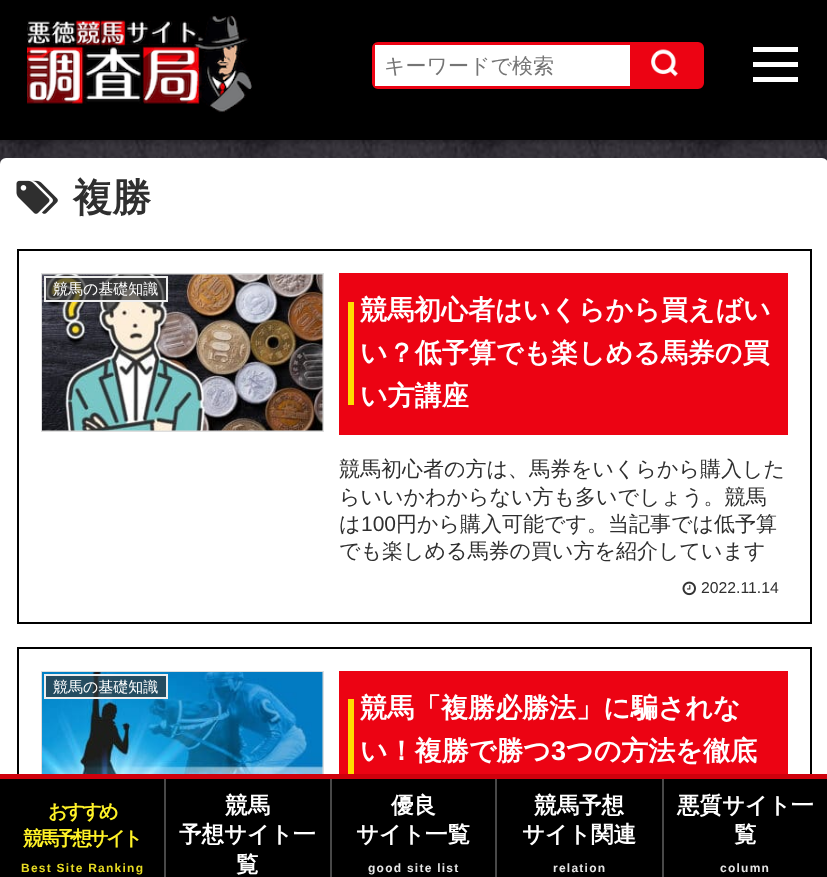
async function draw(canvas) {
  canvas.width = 827;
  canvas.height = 877;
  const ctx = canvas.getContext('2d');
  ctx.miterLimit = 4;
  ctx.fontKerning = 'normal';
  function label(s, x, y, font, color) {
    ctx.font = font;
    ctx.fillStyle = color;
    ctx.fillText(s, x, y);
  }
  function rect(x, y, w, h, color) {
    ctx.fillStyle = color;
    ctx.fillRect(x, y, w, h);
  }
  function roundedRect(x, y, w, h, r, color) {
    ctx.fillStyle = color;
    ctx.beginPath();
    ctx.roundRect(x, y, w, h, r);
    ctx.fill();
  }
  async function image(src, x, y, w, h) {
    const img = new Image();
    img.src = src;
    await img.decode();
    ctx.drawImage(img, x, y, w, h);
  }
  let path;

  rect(0, 0, 827, 877, '#fff');
  await image('assets/img1.png', 0, 140, 827, 24);
  rect(0, 0, 827, 140, '#000');
  ctx.save();
  path = new Path2D('M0 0H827V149H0ZM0 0H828V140H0Z');
  ctx.clip(path, 'evenodd');
  ctx.fillStyle = '#00000033';
  ctx.filter = 'blur(1.5px)';
  ctx.beginPath();
  ctx.rect(0, 3, 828, 140);
  ctx.fill();
  ctx.filter = 'none';
  ctx.restore();
  await image('assets/img2.png', 27, 15, 225, 98);
  ctx.beginPath();
  ctx.roundRect(373.5, 43.5, 329, 44, 4.5);
  ctx.strokeStyle = '#ec0313';
  ctx.lineWidth = 3;
  ctx.stroke();
  rect(375, 45, 255, 41, '#fff');
  label('キーワードで検索', 384, 73, '500 21px WenQuanYi Zen Hei', '#757575');
  rect(630, 45, 71, 41, '#ec0313');
  await image('assets/img3.png', 651, 49, 27, 28);
  rect(753, 47, 45, 5, '#fff');
  rect(753, 62, 45, 5, '#fff');
  rect(753, 77, 45, 5, '#fff');
  roundedRect(0, 158, 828, 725, 6, '#fff');
  ctx.strokeStyle = '#000';
  ctx.lineWidth = 2;
  ctx.strokeRect(18, 648, 793, 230);
  ctx.strokeStyle = '#dedede';
  ctx.strokeRect(42, 672, 281, 157);
  rect(0, 774, 827, 5, '#cf000c');
  rect(0, 779, 827, 98, '#000');
  rect(164, 779, 2, 98, '#484848');
  ctx.letterSpacing = '-3px';
  label('おすすめ', 48, 818, 'bold 19.5px WenQuanYi Zen Hei', '#fff227');
  label('競馬予想サイト', 23, 845, 'bold 19.5px WenQuanYi Zen Hei', '#fff227');
  ctx.letterSpacing = '1.25px';
  label('Best Site Ranking', 21, 872, 'bold 12px Liberation Sans', '#e6da23');
  rect(330, 779, 2, 98, '#484848');
  ctx.letterSpacing = '0px';
  label('競馬', 225, 813, 'bold 22.5px WenQuanYi Zen Hei', '#fff');
  label('予想サイト一', 179, 842, 'bold 22.5px WenQuanYi Zen Hei', '#fff');
  label('覧', 236, 872, 'bold 22.5px WenQuanYi Zen Hei', '#fff');
  rect(495, 779, 2, 98, '#484848');
  label('優良', 391, 813, 'bold 22.5px WenQuanYi Zen Hei', '#fff');
  label('サイト一覧', 356, 842, 'bold 22.5px WenQuanYi Zen Hei', '#fff');
  ctx.letterSpacing = '1.25px';
  label('good site list', 368, 872, 'bold 12px Liberation Sans', '#e6e6e6');
  rect(662, 779, 2, 98, '#484848');
  ctx.letterSpacing = '0px';
  label('競馬予想', 534, 813, 'bold 22.5px WenQuanYi Zen Hei', '#fff');
  label('サイト関連', 522, 842, 'bold 22.5px WenQuanYi Zen Hei', '#fff');
  ctx.letterSpacing = '1.25px';
  label('relation', 553, 872, 'bold 12px Liberation Sans', '#e6e6e6');
  ctx.letterSpacing = '0px';
  label('悪質サイト一', 677, 813, 'bold 22.5px WenQuanYi Zen Hei', '#fff');
  label('覧', 734, 842, 'bold 22.5px WenQuanYi Zen Hei', '#fff');
  ctx.letterSpacing = '1.25px';
  label('column', 720, 872, 'bold 12px Liberation Sans', '#e6e6e6');
  await image('assets/img4.png', 16, 180, 42, 34);
  ctx.letterSpacing = '0px';
  label('複勝', 73, 211, 'bold 39px WenQuanYi Zen Hei', '#2f2f2f');
  ctx.strokeStyle = '#000';
  ctx.strokeRect(18, 250, 793, 373);
  ctx.strokeStyle = '#dedede';
  ctx.strokeRect(42, 274, 281, 157);
  await image('assets/img5.png', 42, 274, 281, 157);
  ctx.fillStyle = '#333333b3';
  ctx.beginPath();
  ctx.rect(45, 277, 122, 24);
  ctx.fill();
  ctx.strokeStyle = '#eee';
  ctx.stroke();
  label('競馬の基礎知識', 53, 294, '500 15px WenQuanYi Zen Hei', '#fff');
  rect(339, 273, 449, 162, '#ec0313');
  rect(348, 302, 6, 103, '#ffde00');
  label('競馬初心者はいくらから買えばい', 360, 319, 'bold 27px WenQuanYi Zen Hei', '#fff');
  label('い？低予算でも楽しめる馬券の買', 360, 362, 'bold 27px WenQuanYi Zen Hei', '#fff');
  label('い方講座', 360, 405, 'bold 27px WenQuanYi Zen Hei', '#fff');
  label('競馬初心者の方は、馬券をいくらから購入した', 339, 476, '500 21px WenQuanYi Zen Hei', '#2f2f2f');
  label('らいいかわからない方も多いでしょう。競馬', 339, 504, '500 21px WenQuanYi Zen Hei', '#2f2f2f');
  label('は', 339, 531, '500 21px WenQuanYi Zen Hei', '#2f2f2f');
  label('100', 361, 531, '21px Liberation Sans', '#2f2f2f');
  label('円から購入可能です。当記事では低予算', 396, 531, '500 21px WenQuanYi Zen Hei', '#2f2f2f');
  label('でも楽しめる馬券の買い方を紹介しています', 339, 558, '500 21px WenQuanYi Zen Hei', '#2f2f2f');
  await image('assets/img6.png', 682, 581, 14, 15);
  label('2022.11.14', 701, 593, '15.75px Liberation Sans', '#2f2f2f');
  await image('assets/img7.png', 42, 672, 281, 102);
  ctx.fillStyle = '#333333b3';
  ctx.beginPath();
  ctx.rect(45, 675, 122, 23);
  ctx.fill();
  ctx.stroke();
  label('競馬の基礎知識', 53, 692, '500 15px WenQuanYi Zen Hei', '#fff');
  rect(339, 671, 449, 103, '#ec0313');
  rect(348, 699, 6, 75, '#ffde00');
  label('競馬「複勝必勝法」に騙されな', 360, 717, 'bold 27px WenQuanYi Zen Hei', '#fff');
  label('い！複勝で勝つ', 360, 760, 'bold 27px WenQuanYi Zen Hei', '#fff');
  label('3', 551, 760, 'bold 27px Liberation Sans', '#fff');
  label('つの方法を徹底', 566, 760, 'bold 27px WenQuanYi Zen Hei', '#fff');
}

draw(document.querySelector('canvas'));
